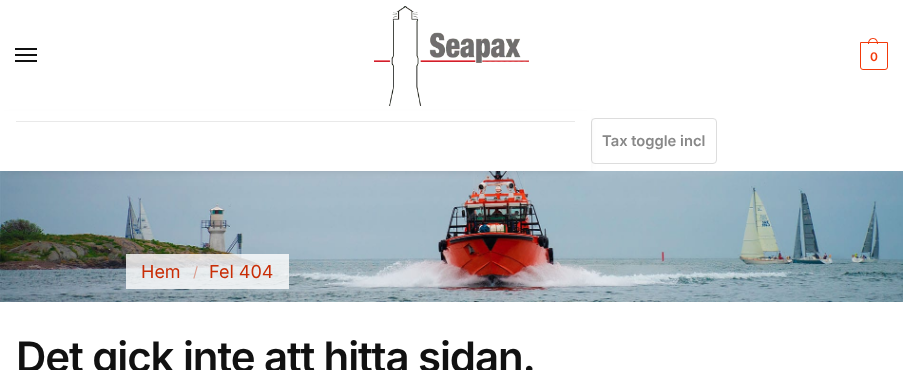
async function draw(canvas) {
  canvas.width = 918;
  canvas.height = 370;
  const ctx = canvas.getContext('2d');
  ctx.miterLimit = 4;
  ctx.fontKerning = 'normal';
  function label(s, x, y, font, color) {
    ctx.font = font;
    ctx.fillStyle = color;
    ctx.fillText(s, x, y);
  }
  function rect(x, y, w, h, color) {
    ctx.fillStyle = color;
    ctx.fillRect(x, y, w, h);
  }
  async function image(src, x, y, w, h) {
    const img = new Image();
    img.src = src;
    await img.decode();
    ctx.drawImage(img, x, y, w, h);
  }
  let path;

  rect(0, 0, 918, 370, '#fff');
  rect(15, 48, 22, 2, '#111');
  rect(15, 54, 22, 2, '#111');
  rect(15, 60, 22, 2, '#111');
  await image('assets/img1.png', 374, 6, 155, 100);
  ctx.beginPath();
  ctx.roundRect(860.5, 42.5, 27, 27, [0, 0, 2.5, 2.5]);
  ctx.strokeStyle = '#f3390a';
  ctx.stroke();
  ctx.fillStyle = '#f3390a';
  path = new Path2D('M873 38C876.5 38 878 41 878 44H868C868 41 869.5 38 873 38ZM873 39C876 39 877 41.5 877 44H869C869 41.5 870 39 873 39Z');
  ctx.fill(path, 'evenodd');
  ctx.letterSpacing = '-1px';
  label('0', 870, 61, '600 12px Inter', '#f3390a');
  ctx.beginPath();
  ctx.roundRect(591.5, 118.5, 125, 45, 3.5);
  ctx.strokeStyle = '#ddd';
  ctx.stroke();
  await image('assets/img2.png', 0, 171, 903, 131);
  ctx.save();
  path = new Path2D('M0 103H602V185H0ZM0 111H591V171H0Z');
  ctx.clip(path, 'evenodd');
  ctx.fillStyle = '#0000002e';
  ctx.filter = 'blur(5px)';
  ctx.beginPath();
  ctx.rect(5, 119, 581, 50);
  ctx.fill();
  ctx.filter = 'none';
  ctx.restore();
  rect(16, 121, 559, 1, '#e9e9e9');
  ctx.letterSpacing = '0px';
  label('Tax toggle incl', 602, 146, '600 14.75px Inter', '#888');
  rect(126, 254, 163, 35, '#ffffffcc');
  label('Hem', 141, 278, '18px Inter', '#c92d06');
  label('/', 193, 277, '14px Inter', '#da9e8f');
  label('Fel 404', 209, 278, '18px Inter', '#c92d06');
  ctx.letterSpacing = '-1.1px';
  label('Det gick inte att hitta sidan.', 16, 372, '600 42px Inter', '#111');
}

draw(document.querySelector('canvas'));
